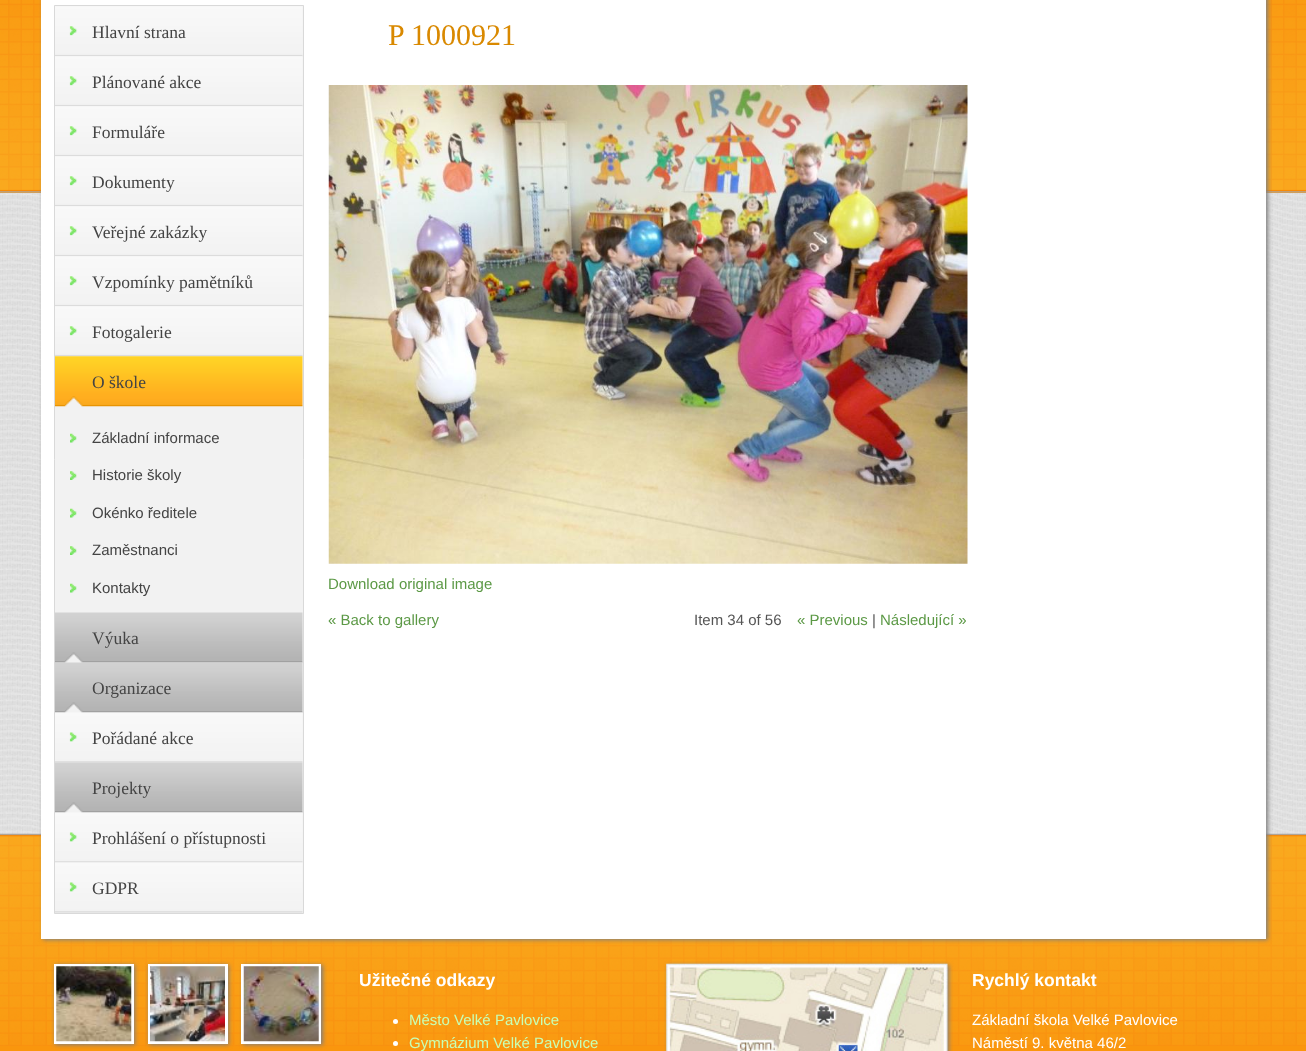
async function draw(canvas) {
  canvas.width = 1306;
  canvas.height = 1051;
  const ctx = canvas.getContext('2d');
  ctx.miterLimit = 4;
  ctx.fontKerning = 'normal';
  function label(s, x, y, font, color) {
    ctx.font = font;
    ctx.fillStyle = color;
    ctx.fillText(s, x, y);
  }
  function rect(x, y, w, h, color) {
    ctx.fillStyle = color;
    ctx.fillRect(x, y, w, h);
  }
  async function image(src, x, y, w, h) {
    const img = new Image();
    img.src = src;
    await img.decode();
    ctx.drawImage(img, x, y, w, h);
  }

  rect(0, 0, 1306, 1051, '#fff');
  await image('assets/img1.png', 0, 193, 1306, 641);
  rect(0, 192, 1306, 1, '#fa960d');
  await image('assets/img2.png', 0, 0, 1306, 193);
  await image('assets/img20.png', 0, 833, 1306, 213);
  ctx.fillStyle = '#808080';
  ctx.filter = 'blur(2px)';
  ctx.beginPath();
  ctx.rect(43, -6, 1225, 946);
  ctx.fill();
  ctx.filter = 'none';
  rect(41, 0, 1225, 939, '#fff');
  ctx.fillStyle = '#f2f2f2';
  ctx.beginPath();
  ctx.rect(54.5, 5.5, 249, 908);
  ctx.fill();
  ctx.strokeStyle = '#d9d9d9';
  ctx.stroke();
  await image('assets/img3.png', 55, 6, 248, 51);
  label('Hlavní strana', 92, 38, '17.5px Liberation Serif', '#444');
  await image('assets/img4.png', 55, 56, 248, 51);
  label('Plánované akce', 92, 88, '17.5px Liberation Serif', '#444');
  await image('assets/img4.png', 55, 106, 248, 51);
  label('Formuláře', 92, 138, '17.5px Liberation Serif', '#444');
  await image('assets/img4.png', 55, 156, 248, 51);
  label('Dokumenty', 92, 188, '17.5px Liberation Serif', '#444');
  await image('assets/img4.png', 55, 206, 248, 51);
  label('Veřejné zakázky', 92, 238, '17.5px Liberation Serif', '#444');
  await image('assets/img4.png', 55, 256, 248, 51);
  label('Vzpomínky pamětníků', 92, 288, '17.5px Liberation Serif', '#444');
  await image('assets/img5.png', 55, 306, 248, 51);
  label('Fotogalerie', 92, 338, '17.5px Liberation Serif', '#444');
  await image('assets/img6.png', 55, 356, 248, 51);
  label('O škole', 92, 388, '17.5px Liberation Serif', '#444');
  await image('assets/img7.png', 70, 433, 7, 10);
  label('Základní informace', 92, 443, '15px Liberation Sans', '#444');
  await image('assets/img8.png', 70, 471, 7, 9);
  label('Historie školy', 92, 480, '15px Liberation Sans', '#444');
  await image('assets/img9.png', 70, 508, 7, 10);
  label('Okénko ředitele', 92, 518, '15px Liberation Sans', '#444');
  await image('assets/img8.png', 70, 546, 7, 9);
  label('Zaměstnanci', 92, 555, '15px Liberation Sans', '#444');
  await image('assets/img7.png', 70, 583, 7, 10);
  label('Kontakty', 92, 593, '15px Liberation Sans', '#444');
  await image('assets/img10.png', 55, 612, 248, 51);
  label('Výuka', 92, 644, '17.5px Liberation Serif', '#444');
  await image('assets/img11.png', 55, 662, 248, 51);
  label('Organizace', 92, 694, '17.5px Liberation Serif', '#444');
  await image('assets/img12.png', 55, 712, 248, 51);
  label('Pořádané akce', 92, 744, '17.5px Liberation Serif', '#444');
  await image('assets/img13.png', 55, 762, 248, 51);
  label('Projekty', 92, 794, '17.5px Liberation Serif', '#444');
  await image('assets/img12.png', 55, 812, 248, 51);
  label('Prohlášení o přístupnosti', 92, 844, '17.5px Liberation Serif', '#444');
  await image('assets/img14.png', 55, 862, 248, 51);
  label('GDPR', 92, 894, '17.5px Liberation Serif', '#444');
  label('P 1000921', 388, 45, '30px Liberation Serif', '#d98900');
  await image('assets/img15.png', 328, 85, 640, 479);
  label('Download original image', 328, 589, '15px Liberation Sans', '#5c9946');
  label('« Back to gallery', 328, 625, '15px Liberation Sans', '#5c9946');
  label('Item 34 of 56', 694, 625, '15px Liberation Sans', '#555');
  label('« Previous', 797, 625, '15px Liberation Sans', '#5c9946');
  label('|', 872, 625, '15px Liberation Sans', '#555');
  label('Následující »', 880, 625, '15px Liberation Sans', '#5c9946');
  rect(0, 1046, 1306, 5, '#fa960d');
  ctx.fillStyle = '#808080';
  ctx.filter = 'blur(2px)';
  ctx.beginPath();
  ctx.rect(55, 965, 80, 80);
  ctx.fill();
  ctx.filter = 'none';
  ctx.strokeStyle = '#fff';
  ctx.lineWidth = 3;
  ctx.strokeRect(55.5, 965.5, 77, 77);
  await image('assets/img16.png', 56, 966, 76, 76);
  ctx.filter = 'blur(2px)';
  ctx.beginPath();
  ctx.rect(149, 965, 80, 80);
  ctx.fill();
  ctx.filter = 'none';
  ctx.strokeRect(149.5, 965.5, 77, 77);
  await image('assets/img17.png', 150, 966, 75, 76);
  ctx.filter = 'blur(2px)';
  ctx.beginPath();
  ctx.rect(243, 965, 80, 80);
  ctx.fill();
  ctx.filter = 'none';
  ctx.strokeRect(242.5, 965.5, 77, 77);
  await image('assets/img18.png', 243, 966, 76, 76);
  label('Užitečné odkazy', 359, 986, 'bold 17.5px Liberation Sans', '#fff');
  ctx.beginPath();
  ctx.arc(395.5, 1021.5, 2.5, 0, 2 * Math.PI);
  ctx.fill();
  label('Město Velké Pavlovice', 409, 1025, '15px Liberation Sans', '#c8ffb4');
  ctx.fillStyle = '#fff';
  ctx.beginPath();
  ctx.arc(395.5, 1043.5, 2.5, 0, 2 * Math.PI);
  ctx.fill();
  label('Gymnázium Velké Pavlovice', 409, 1048, '15px Liberation Sans', '#c8ffb4');
  ctx.fillStyle = '#808080';
  ctx.filter = 'blur(2px)';
  ctx.beginPath();
  ctx.rect(668, 965, 281, 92);
  ctx.fill();
  ctx.filter = 'none';
  await image('assets/img19.png', 666, 963, 282, 88);
  label('Rychlý kontakt', 972, 986, 'bold 17.5px Liberation Sans', '#fff');
  label('Základní škola Velké Pavlovice', 972, 1025, '15px Liberation Sans', '#fff');
  label('Náměstí 9. května 46/2', 972, 1048, '15px Liberation Sans', '#fff');
}

draw(document.querySelector('canvas'));
